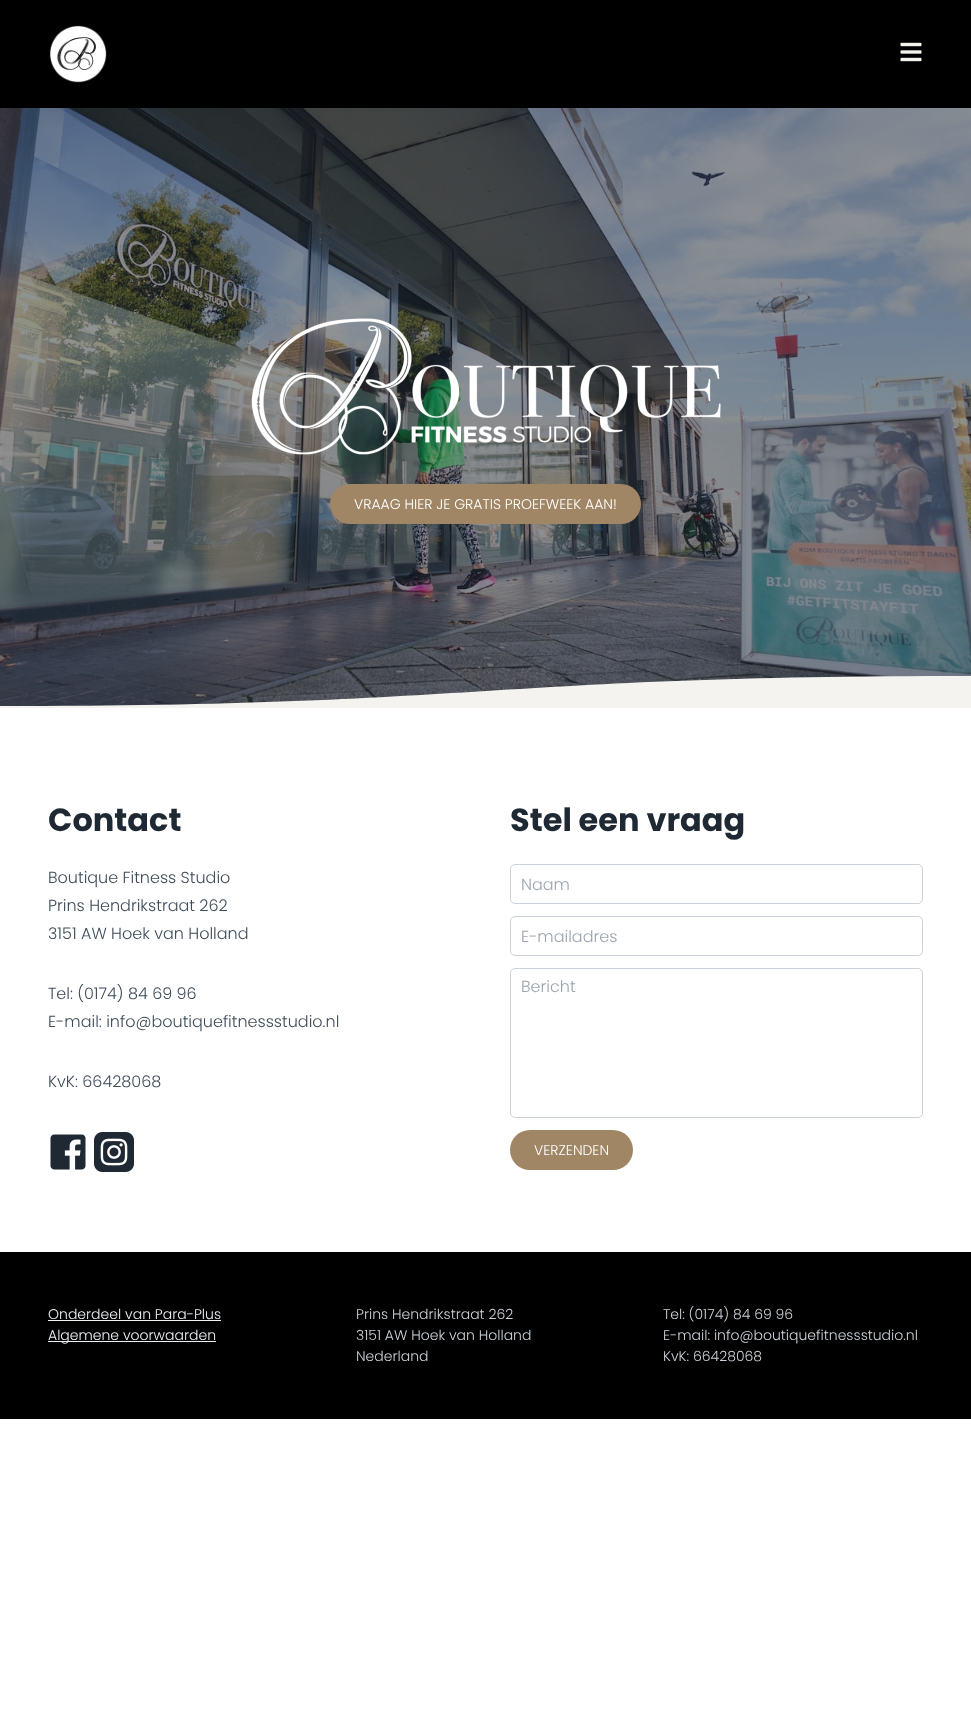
async function draw(canvas) {
  canvas.width = 971;
  canvas.height = 1735;
  const ctx = canvas.getContext('2d');
  ctx.miterLimit = 4;
  ctx.fontKerning = 'normal';
  function label(s, x, y, font, color) {
    ctx.font = font;
    ctx.fillStyle = color;
    ctx.fillText(s, x, y);
  }
  function rect(x, y, w, h, color) {
    ctx.fillStyle = color;
    ctx.fillRect(x, y, w, h);
  }
  function roundedRect(x, y, w, h, r, color) {
    ctx.fillStyle = color;
    ctx.beginPath();
    ctx.roundRect(x, y, w, h, r);
    ctx.fill();
  }
  async function image(src, x, y, w, h) {
    const img = new Image();
    img.src = src;
    await img.decode();
    ctx.drawImage(img, x, y, w, h);
  }
  let path;

  rect(0, 0, 971, 1735, '#fff');
  rect(0, 0, 971, 108, '#000');
  await image('assets/img1.png', 49, 25, 58, 58);
  await image('assets/img2.png', 900, 42, 22, 20);
  await image('assets/img3.png', 0, 108, 971, 598);
  await image('assets/img4.png', 251, 318, 470, 137);
  roundedRect(330, 484, 311, 40, 20, '#a08665');
  label('VRAAG HIER JE GRATIS PROEFWEEK AAN!', 354, 509, '300 14px Poppins', '#fff');
  ctx.fillStyle = '#f5f3f0';
  path = new Path2D('M971 708V676C486 676 486 706 0 706V708');
  ctx.fill(path);
  label('Contact', 48, 831, 'bold 32px Poppins', '#1f2933');
  label('Boutique Fitness Studio', 48, 883, '300 16px Poppins', '#3e4c59');
  label('Prins Hendrikstraat 262', 48, 911, '300 16px Poppins', '#3e4c59');
  label('3151 AW Hoek van Holland', 48, 939, '300 16px Poppins', '#3e4c59');
  label('Tel: (0174) 84 69 96', 48, 999, '300 16px Poppins', '#3e4c59');
  label('E-mail: info@boutiquefitnessstudio.nl', 48, 1027, '300 16px Poppins', '#3e4c59');
  label('KvK: 66428068', 48, 1087, '300 16px Poppins', '#3e4c59');
  await image('assets/img5.png', 50, 1134, 36, 36);
  await image('assets/img6.png', 94, 1132, 40, 40);
  label('Stel een vraag', 510, 831, 'bold 32px Poppins', '#1f2933');
  ctx.beginPath();
  ctx.roundRect(510.5, 864.5, 412, 39, 4.5);
  ctx.strokeStyle = '#cbd2d9';
  ctx.stroke();
  label('Naam', 521, 890, '300 16px Poppins', '#9aa5b1');
  ctx.beginPath();
  ctx.roundRect(510.5, 916.5, 412, 39, 4.5);
  ctx.stroke();
  label('E-mailadres', 521, 942, '300 16px Poppins', '#9aa5b1');
  ctx.beginPath();
  ctx.roundRect(510.5, 968.5, 412, 149, 4.5);
  ctx.stroke();
  label('Bericht', 521, 992, '300 16px Poppins', '#9aa5b1');
  roundedRect(510, 1130, 123, 40, 20, '#a08665');
  label('VERZENDEN', 534, 1155, '300 14px Poppins', '#fff');
  rect(0, 1252, 971, 167, '#000');
  label('Onderdeel van Para-Plus', 48, 1319, '300 14px Poppins', '#edf2f7');
  rect(48, 1320, 173, 1, '#edf2f7');
  rect(48, 1341, 168, 1, '#edf2f7');
  label('Algemene voorwaarden', 48, 1340, '300 14px Poppins', '#edf2f7');
  label('Prins Hendrikstraat 262', 356, 1319, '300 14px Poppins', '#cbd2d9');
  label('3151 AW Hoek van Holland', 356, 1340, '300 14px Poppins', '#cbd2d9');
  label('Nederland', 356, 1361, '300 14px Poppins', '#cbd2d9');
  label('Tel: (0174) 84 69 96', 663, 1319, '300 14px Poppins', '#cbd2d9');
  label('E-mail: info@boutiquefitnessstudio.nl', 663, 1340, '300 14px Poppins', '#cbd2d9');
  label('KvK: 66428068', 663, 1361, '300 14px Poppins', '#cbd2d9');
}

draw(document.querySelector('canvas'));
